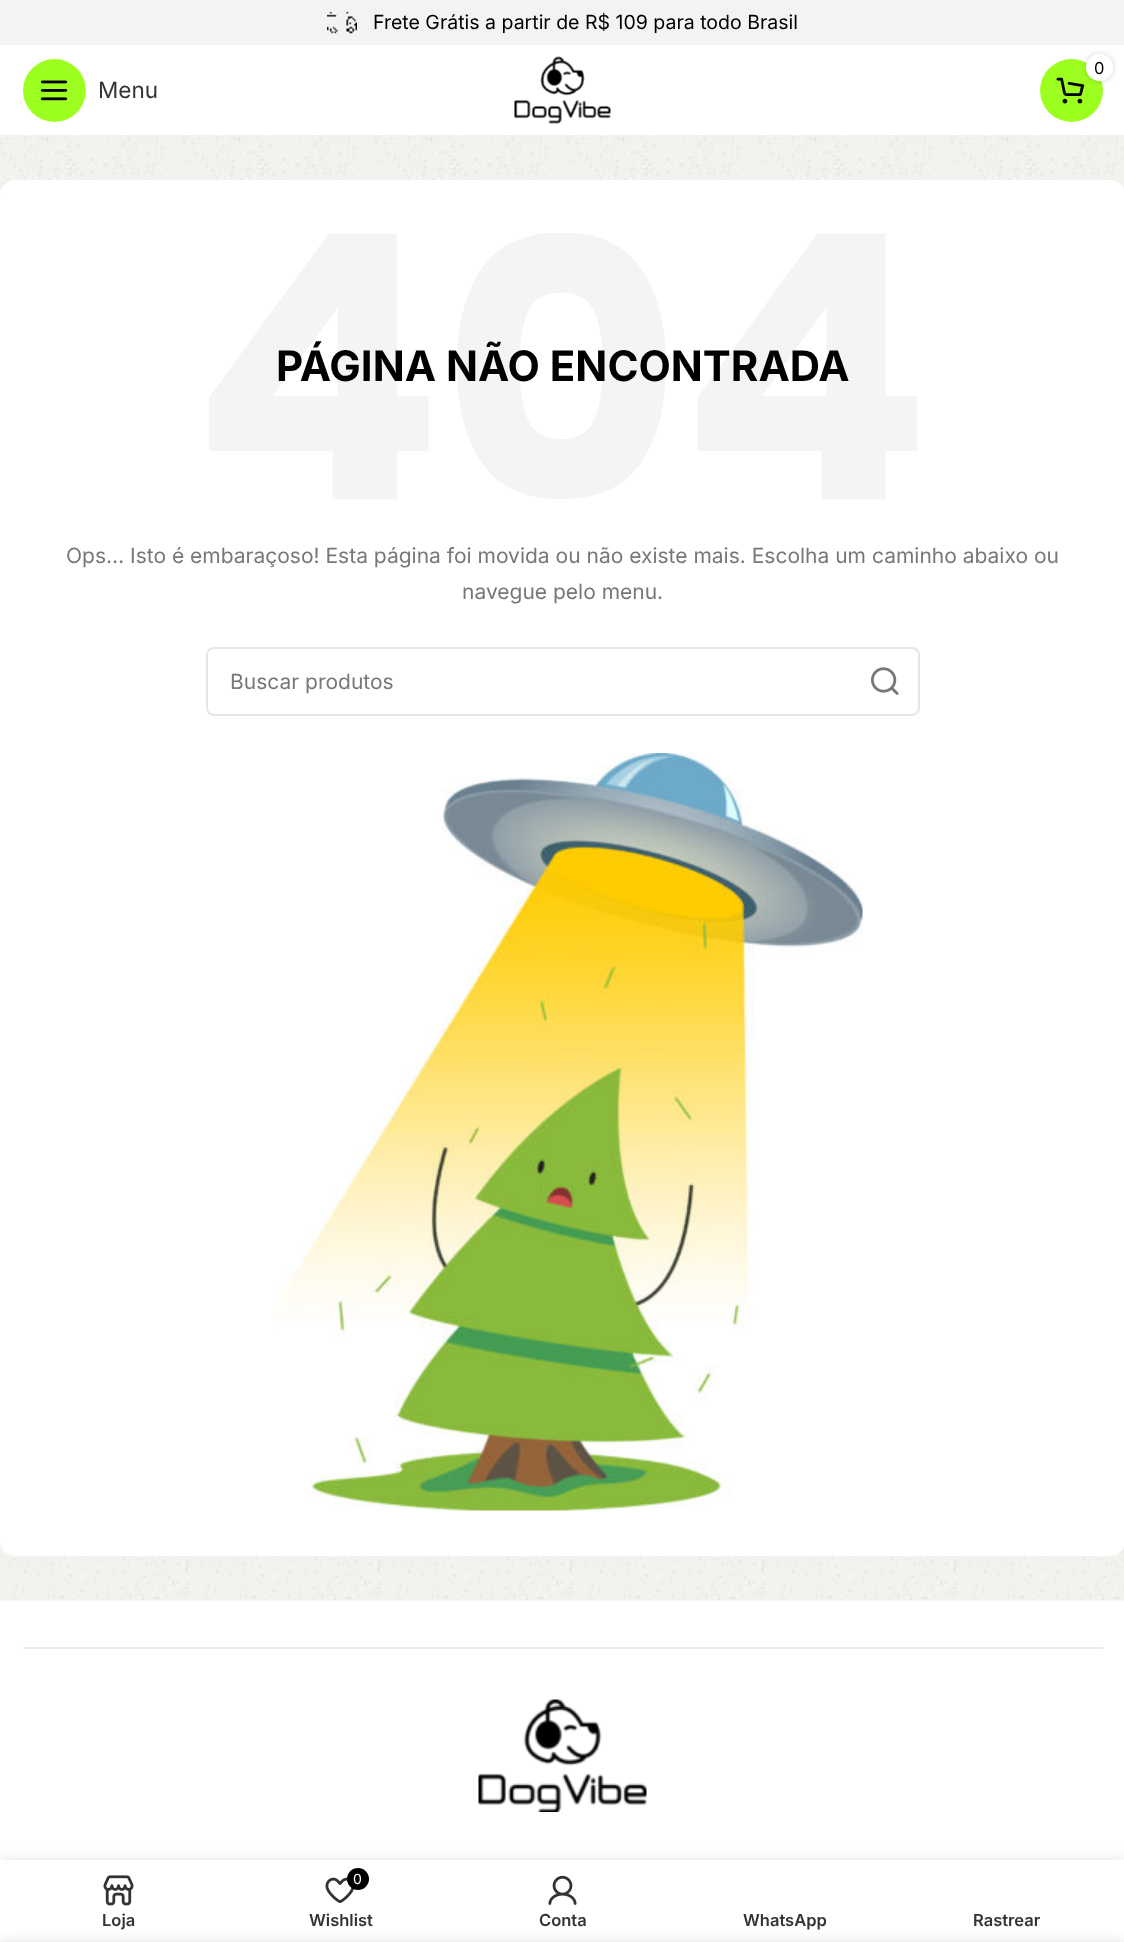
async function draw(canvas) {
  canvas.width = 1124;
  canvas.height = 1942;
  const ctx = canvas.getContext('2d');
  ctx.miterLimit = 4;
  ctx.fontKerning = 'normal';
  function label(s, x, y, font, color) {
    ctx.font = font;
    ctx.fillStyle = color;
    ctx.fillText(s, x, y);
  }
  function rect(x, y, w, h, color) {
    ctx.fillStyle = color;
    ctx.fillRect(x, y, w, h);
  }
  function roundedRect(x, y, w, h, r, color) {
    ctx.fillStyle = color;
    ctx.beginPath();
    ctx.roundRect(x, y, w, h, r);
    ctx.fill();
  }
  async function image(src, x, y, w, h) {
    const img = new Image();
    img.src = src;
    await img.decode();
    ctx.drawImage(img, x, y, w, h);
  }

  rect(0, 0, 1124, 1942, '#fff');
  rect(0, 0, 1124, 45, '#f3f4f1');
  await image('assets/img1.png', 327, 11, 30, 23);
  label('Frete Grátis a partir de R$ 109 para todo Brasil', 373, 29, '19.5px Inter', '#000');
  await image('assets/img2.png', 514, 56, 97, 68);
  ctx.fillStyle = '#9dff20';
  ctx.beginPath();
  ctx.arc(1071.5, 90.5, 31.5, 0, 2 * Math.PI);
  ctx.fill();
  await image('assets/img3.png', 1056, 77, 29, 27);
  ctx.fillStyle = '#0000002b';
  ctx.filter = 'blur(3px)';
  ctx.beginPath();
  ctx.roundRect(1086, 54, 27, 27, 13.5);
  ctx.fill();
  ctx.filter = 'none';
  ctx.fillStyle = '#fff';
  ctx.beginPath();
  ctx.arc(1099.5, 67.5, 13.5, 0, 2 * Math.PI);
  ctx.fill();
  label('0', 1094, 74, '16.5px Inter', '#000');
  ctx.fillStyle = '#9dff20';
  ctx.beginPath();
  ctx.arc(54.5, 90.5, 31.5, 0, 2 * Math.PI);
  ctx.fill();
  await image('assets/img4.png', 40, 80, 28, 21);
  label('Menu', 98, 98, '22.5px Inter', '#333');
  await image('assets/img5.png', 0, 135, 1124, 1466);
  roundedRect(0, 180, 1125, 1376, 15, '#fff');
  await image('assets/img6.png', 209, 233, 708, 267);
  label('PÁGINA NÃO ENCONTRADA', 276, 381, 'bold 42px Inter', '#000');
  label('Ops… Isto é embaraçoso! Esta página foi movida ou não existe mais. Escolha um caminho abaixo ou', 66, 563, '21px Inter', '#777');
  label('navegue pelo menu.', 462, 599, '21px Inter', '#777');
  ctx.beginPath();
  ctx.roundRect(207, 648, 712, 67, 7);
  ctx.strokeStyle = '#e6e6e6';
  ctx.lineWidth = 2;
  ctx.stroke();
  label('Buscar produtos', 230, 689, '21px Inter', '#777');
  await image('assets/img7.png', 871, 667, 28, 28);
  await image('assets/img8.png', 274, 753, 589, 758);
  rect(23, 1647, 1080, 2, '#ebebeb');
  await image('assets/img9.png', 478, 1699, 169, 113);
  ctx.fillStyle = '#0000001f';
  ctx.filter = 'blur(7px)';
  ctx.beginPath();
  ctx.rect(0, 1860, 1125, 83);
  ctx.fill();
  ctx.filter = 'none';
  rect(0, 1860, 1124, 82, '#fff');
  await image('assets/img10.png', 103, 1875, 31, 31);
  label('Loja', 102, 1926, '600 16.5px Inter', '#333');
  await image('assets/img11.png', 325, 1877, 29, 26);
  ctx.fillStyle = '#000';
  ctx.beginPath();
  ctx.arc(358, 1879, 11, 0, 2 * Math.PI);
  ctx.fill();
  label('0', 353, 1884, '14px Inter', '#fff');
  label('Wishlist', 309, 1926, '600 16.5px Inter', '#333');
  await image('assets/img12.png', 548, 1875, 29, 30);
  label('Conta', 539, 1926, '600 16.5px Inter', '#333');
  label('WhatsApp', 743, 1926, '600 16.5px Inter', '#333');
  label('Rastrear', 973, 1926, '600 16.5px Inter', '#333');
  ctx.fillStyle = '#00000024';
  ctx.filter = 'blur(7px)';
  ctx.beginPath();
  ctx.rect(0, 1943, 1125, 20);
  ctx.fill();
  ctx.filter = 'none';
}

draw(document.querySelector('canvas'));
